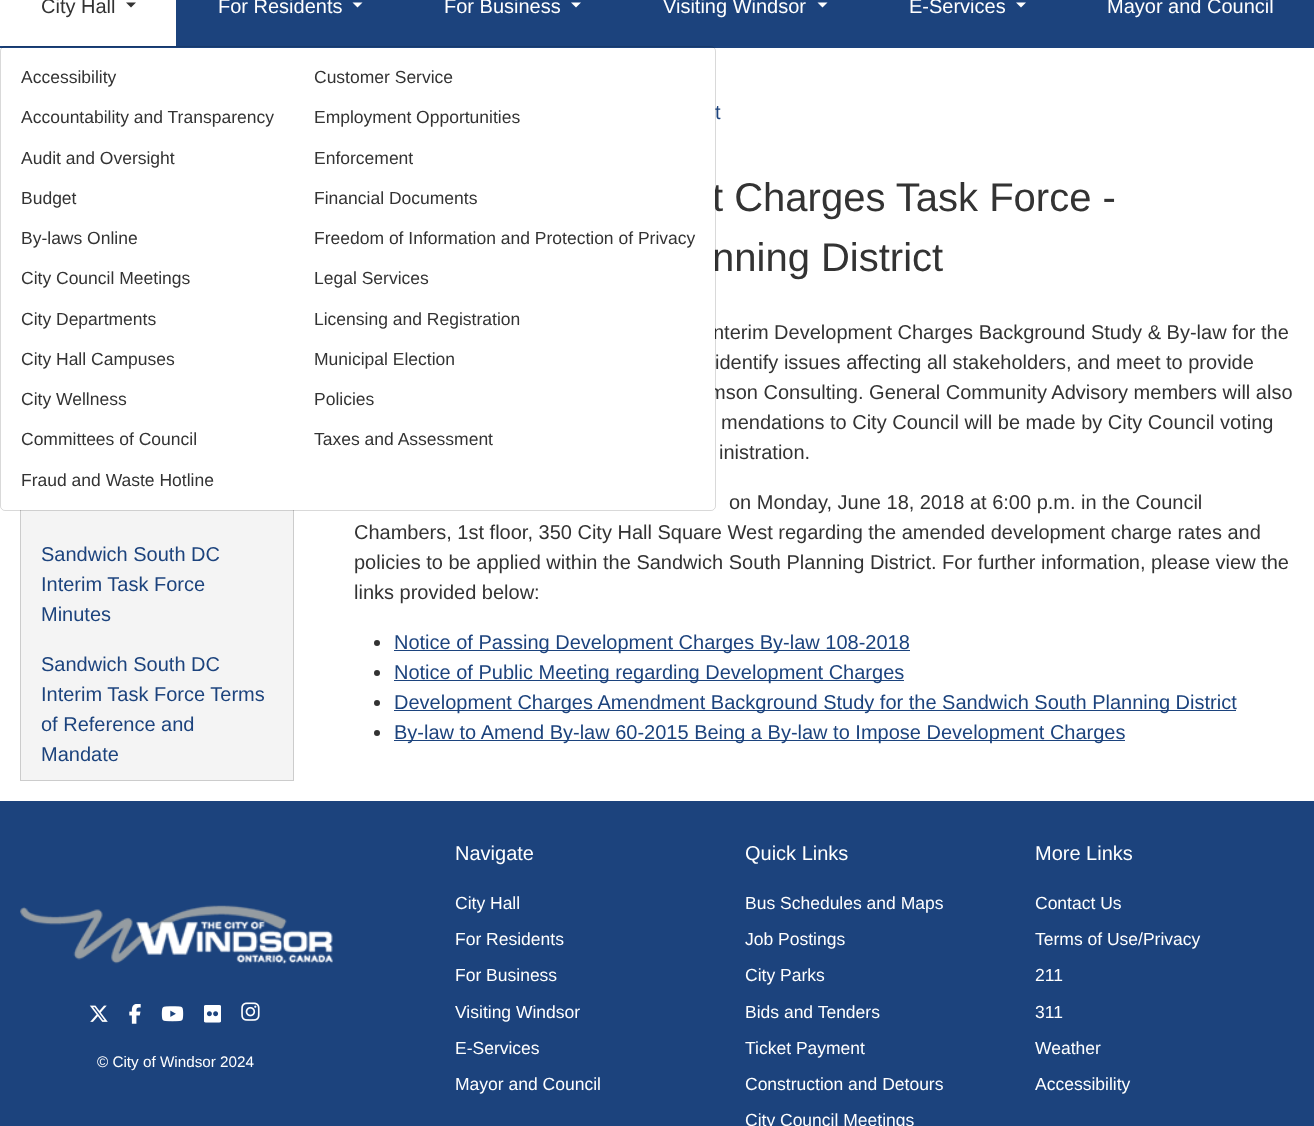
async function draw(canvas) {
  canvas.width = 1314;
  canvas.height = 1126;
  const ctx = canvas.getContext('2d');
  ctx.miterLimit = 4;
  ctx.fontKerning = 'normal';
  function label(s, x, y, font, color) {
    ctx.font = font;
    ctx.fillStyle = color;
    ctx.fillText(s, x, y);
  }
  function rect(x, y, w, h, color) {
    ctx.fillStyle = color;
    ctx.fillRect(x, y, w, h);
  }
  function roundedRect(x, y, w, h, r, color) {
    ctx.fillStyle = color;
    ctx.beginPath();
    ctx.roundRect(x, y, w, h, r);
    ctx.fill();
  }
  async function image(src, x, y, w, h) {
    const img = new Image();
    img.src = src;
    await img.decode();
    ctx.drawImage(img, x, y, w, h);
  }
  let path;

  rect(0, 0, 1314, 1126, '#fff');
  rect(0, 0, 1314, 48, '#1c437d');
  rect(0, 0, 176, 46, '#fff');
  label('City Hall', 41, 13, '20px Liberation Sans', '#333');
  path = new Path2D('M126 2.5H136L131 7.5Z');
  ctx.fill(path);
  rect(21, 510, 272, 270, '#f4f4f4');
  ctx.strokeStyle = '#ccc';
  ctx.strokeRect(20.5, 148.5, 273, 632);
  label('t Charges Task Force -', 712, 211, '40px Liberation Sans', '#333');
  label('nning District', 712, 271, '40px Liberation Sans', '#333');
  label('nterim Development Charges Background Study & By-law for the', 713, 339, '20px Liberation Sans', '#333');
  label('mson Consulting. General Community Advisory members will also', 709, 399, '20px Liberation Sans', '#333');
  roundedRect(1, 48, 714, 462, 4, '#fff');
  label('t', 715, 119, '20px Liberation Sans', '#1c437d');
  ctx.beginPath();
  ctx.roundRect(0.5, 46.5, 715, 464, 4.5);
  ctx.strokeStyle = '#00000026';
  ctx.stroke();
  label('Accessibility', 21, 83, '17.5px Liberation Sans', '#333');
  label('Accountability and Transparency', 21, 123, '17.5px Liberation Sans', '#333');
  label('Audit and Oversight', 21, 164, '17.5px Liberation Sans', '#333');
  label('Budget', 21, 204, '17.5px Liberation Sans', '#333');
  label('By-laws Online', 21, 244, '17.5px Liberation Sans', '#333');
  label('City Council Meetings', 21, 284, '17.5px Liberation Sans', '#333');
  label('City Departments', 21, 325, '17.5px Liberation Sans', '#333');
  label('City Hall Campuses', 21, 365, '17.5px Liberation Sans', '#333');
  label('City Wellness', 21, 405, '17.5px Liberation Sans', '#333');
  label('Committees of Council', 21, 445, '17.5px Liberation Sans', '#333');
  label('Fraud and Waste Hotline', 21, 486, '17.5px Liberation Sans', '#333');
  label('Customer Service', 314, 83, '17.5px Liberation Sans', '#333');
  label('Employment Opportunities', 314, 123, '17.5px Liberation Sans', '#333');
  label('Enforcement', 314, 164, '17.5px Liberation Sans', '#333');
  label('Financial Documents', 314, 204, '17.5px Liberation Sans', '#333');
  label('Freedom of Information and Protection of Privacy', 314, 244, '17.5px Liberation Sans', '#333');
  label('Legal Services', 314, 284, '17.5px Liberation Sans', '#333');
  label('Licensing and Registration', 314, 325, '17.5px Liberation Sans', '#333');
  label('Municipal Election', 314, 365, '17.5px Liberation Sans', '#333');
  label('Policies', 314, 405, '17.5px Liberation Sans', '#333');
  label('Taxes and Assessment', 314, 445, '17.5px Liberation Sans', '#333');
  label('For Residents', 218, 13, '20px Liberation Sans', '#fff');
  path = new Path2D('M352.5 2.5H362.5L357.5 7.5Z');
  ctx.fill(path);
  label('For Business', 444, 13, '20px Liberation Sans', '#fff');
  path = new Path2D('M571 2.5H581L576 7.5Z');
  ctx.fill(path);
  label('Visiting Windsor', 663, 13, '20px Liberation Sans', '#fff');
  path = new Path2D('M817.5 2.5H827.5L822.5 7.5Z');
  ctx.fill(path);
  label('E-Services', 909, 13, '20px Liberation Sans', '#fff');
  path = new Path2D('M1016 2.5H1026L1021 7.5Z');
  ctx.fill(path);
  label('Mayor and Council', 1107, 13, '20px Liberation Sans', '#fff');
  label('Sandwich South DC', 41, 561, '20px Liberation Sans', '#1c437d');
  label('Interim Task Force', 41, 591, '20px Liberation Sans', '#1c437d');
  label('Minutes', 41, 621, '20px Liberation Sans', '#1c437d');
  label('Sandwich South DC', 41, 671, '20px Liberation Sans', '#1c437d');
  label('Interim Task Force Terms', 41, 701, '20px Liberation Sans', '#1c437d');
  label('of Reference and', 41, 731, '20px Liberation Sans', '#1c437d');
  label('Mandate', 41, 761, '20px Liberation Sans', '#1c437d');
  label('identify issues affecting all stakeholders, and meet to provide', 715, 369, '20px Liberation Sans', '#333');
  label('mendations to City Council will be made by City Council voting', 721, 429, '20px Liberation Sans', '#333');
  label('inistration.', 719, 459, '20px Liberation Sans', '#333');
  label('on Monday, June 18, 2018 at 6:00 p.m. in the Council', 729, 509, '20px Liberation Sans', '#333');
  label('Chambers, 1st floor, 350 City Hall Square West regarding the amended development charge rates and', 354, 539, '20px Liberation Sans', '#333');
  label('policies to be applied within the Sandwich South Planning District. For further information, please view the', 354, 569, '20px Liberation Sans', '#333');
  label('links provided below:', 354, 599, '20px Liberation Sans', '#333');
  ctx.beginPath();
  ctx.arc(377, 643, 3, 0, 2 * Math.PI);
  ctx.fill();
  rect(394, 650, 516, 1, '#1c437d');
  label('Notice of Passing Development Charges By-law 108-2018', 394, 649, '20px Liberation Sans', '#1c437d');
  ctx.fillStyle = '#333';
  ctx.beginPath();
  ctx.arc(377, 673, 3, 0, 2 * Math.PI);
  ctx.fill();
  rect(394, 680, 510, 1, '#1c437d');
  label('Notice of Public Meeting regarding Development Charges', 394, 679, '20px Liberation Sans', '#1c437d');
  ctx.fillStyle = '#333';
  ctx.beginPath();
  ctx.arc(377, 703, 3, 0, 2 * Math.PI);
  ctx.fill();
  rect(394, 710, 842, 1, '#1c437d');
  label('Development Charges Amendment Background Study for the Sandwich South Planning District', 394, 709, '20px Liberation Sans', '#1c437d');
  ctx.fillStyle = '#333';
  ctx.beginPath();
  ctx.arc(377, 733, 3, 0, 2 * Math.PI);
  ctx.fill();
  rect(394, 740, 731, 1, '#1c437d');
  label('By-law to Amend By-law 60-2015 Being a By-law to Impose Development Charges', 394, 739, '20px Liberation Sans', '#1c437d');
  rect(0, 801, 1314, 325, '#1c437d');
  await image('assets/img1.png', 20, 905, 313, 59);
  await image('assets/img2.png', 89, 1005, 19, 17);
  await image('assets/img3.png', 129, 1004, 12, 20);
  await image('assets/img4.png', 161, 1006, 23, 16);
  await image('assets/img5.png', 204, 1005, 17, 18);
  await image('assets/img6.png', 241, 1002, 19, 19);
  label('© City of Windsor 2024', 97, 1067, '15.25px Liberation Sans', '#fff');
  label('Navigate', 455, 860, '20px Liberation Sans', '#fff');
  label('City Hall', 455, 909, '17.5px Liberation Sans', '#fff');
  label('For Residents', 455, 945, '17.5px Liberation Sans', '#fff');
  label('For Business', 455, 981, '17.5px Liberation Sans', '#fff');
  label('Visiting Windsor', 455, 1018, '17.5px Liberation Sans', '#fff');
  label('E-Services', 455, 1054, '17.5px Liberation Sans', '#fff');
  label('Mayor and Council', 455, 1090, '17.5px Liberation Sans', '#fff');
  label('Quick Links', 745, 860, '20px Liberation Sans', '#fff');
  label('Bus Schedules and Maps', 745, 909, '17.5px Liberation Sans', '#fff');
  label('Job Postings', 745, 945, '17.5px Liberation Sans', '#fff');
  label('City Parks', 745, 981, '17.5px Liberation Sans', '#fff');
  label('Bids and Tenders', 745, 1018, '17.5px Liberation Sans', '#fff');
  label('Ticket Payment', 745, 1054, '17.5px Liberation Sans', '#fff');
  label('Construction and Detours', 745, 1090, '17.5px Liberation Sans', '#fff');
  label('City Council Meetings', 745, 1126, '17.5px Liberation Sans', '#fff');
  label('More Links', 1035, 860, '20px Liberation Sans', '#fff');
  label('Contact Us', 1035, 909, '17.5px Liberation Sans', '#fff');
  label('Terms of Use/Privacy', 1035, 945, '17.5px Liberation Sans', '#fff');
  label('211', 1035, 981, '17.5px Liberation Sans', '#fff');
  label('311', 1035, 1018, '17.5px Liberation Sans', '#fff');
  label('Weather', 1035, 1054, '17.5px Liberation Sans', '#fff');
  label('Accessibility', 1035, 1090, '17.5px Liberation Sans', '#fff');
}

draw(document.querySelector('canvas'));
